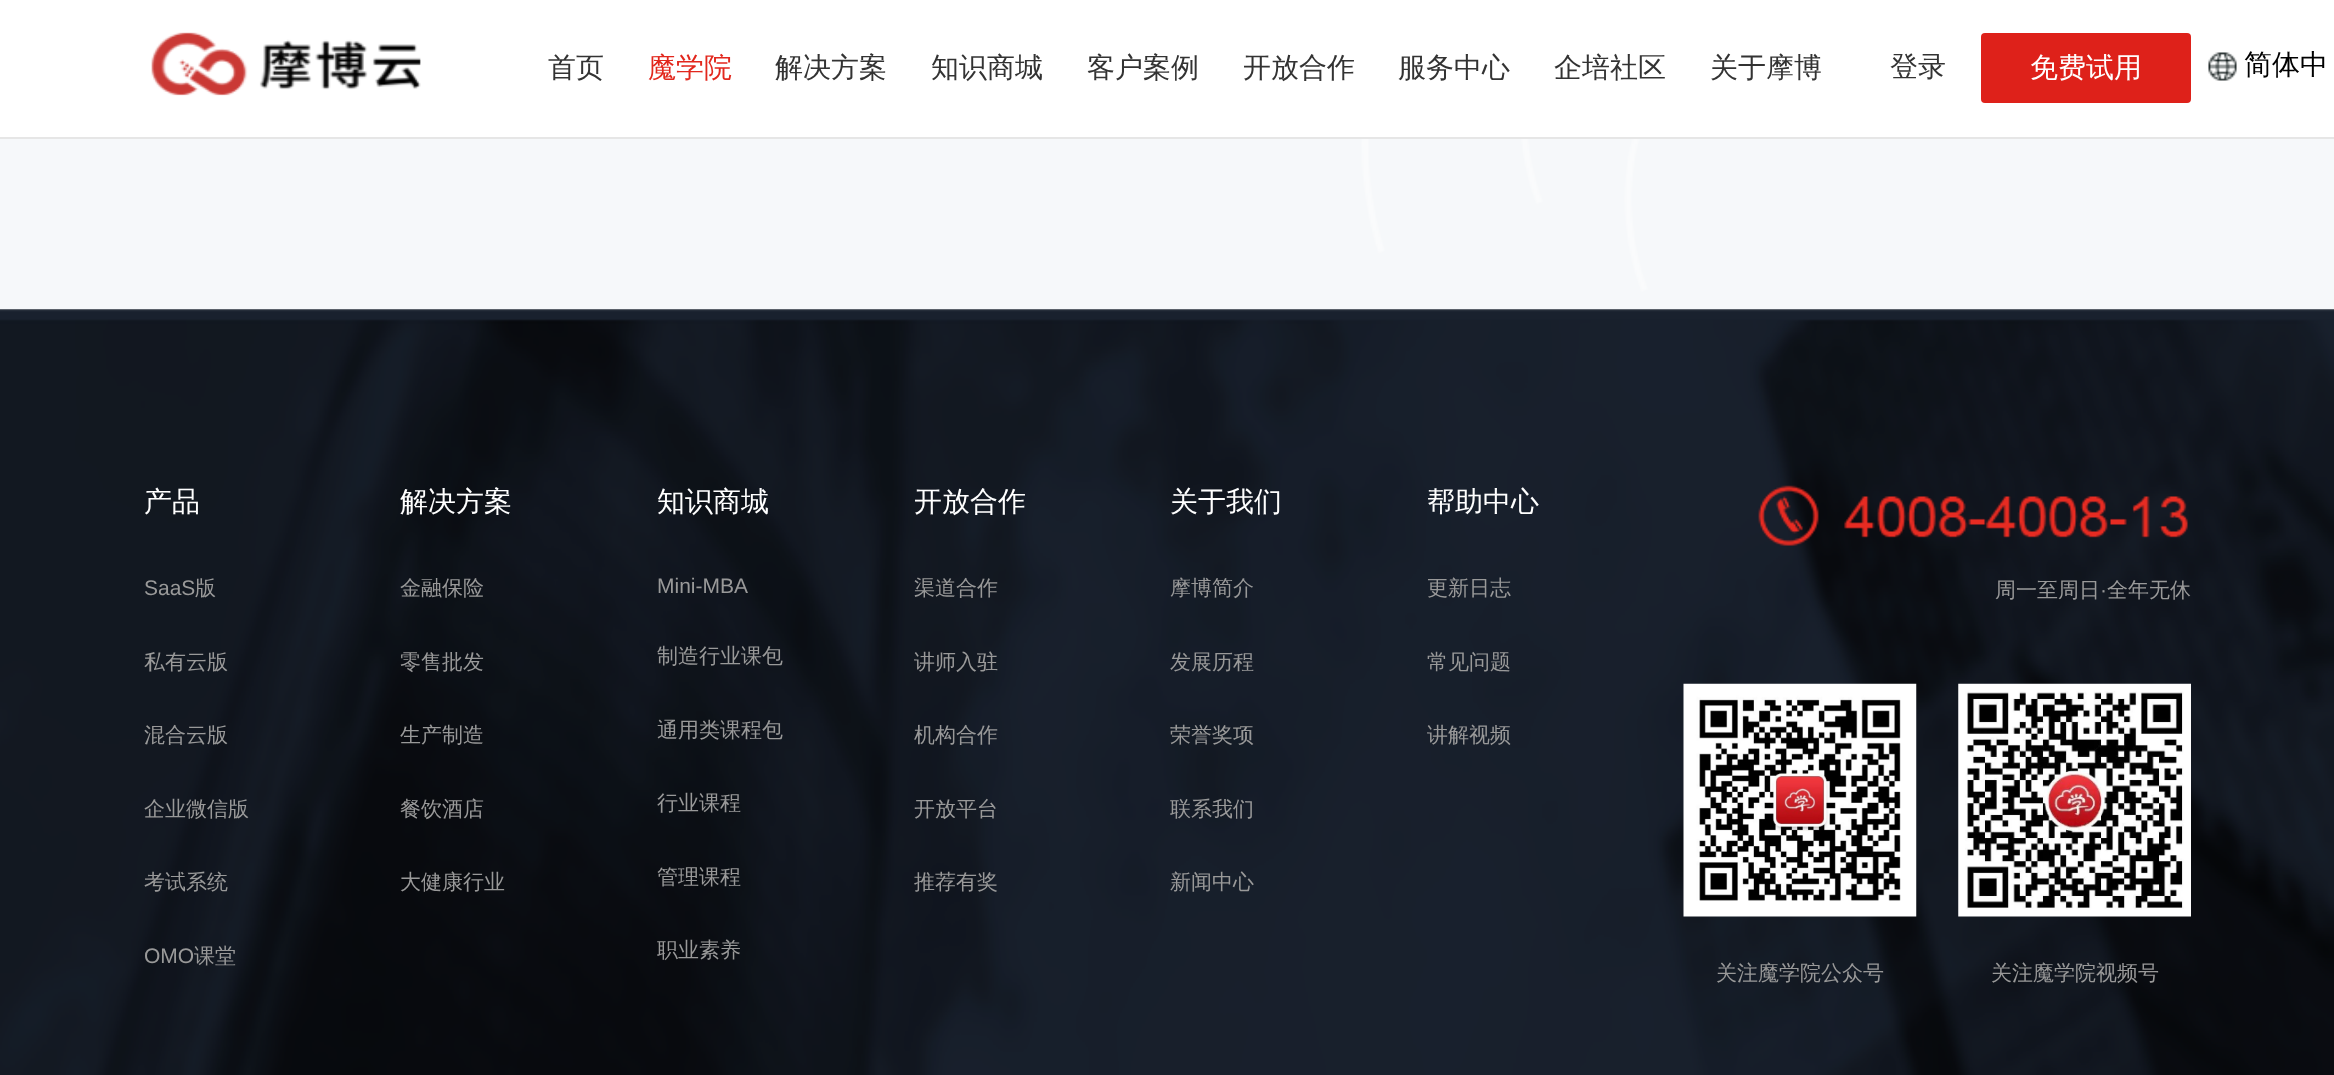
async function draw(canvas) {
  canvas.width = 2334;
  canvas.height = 1075;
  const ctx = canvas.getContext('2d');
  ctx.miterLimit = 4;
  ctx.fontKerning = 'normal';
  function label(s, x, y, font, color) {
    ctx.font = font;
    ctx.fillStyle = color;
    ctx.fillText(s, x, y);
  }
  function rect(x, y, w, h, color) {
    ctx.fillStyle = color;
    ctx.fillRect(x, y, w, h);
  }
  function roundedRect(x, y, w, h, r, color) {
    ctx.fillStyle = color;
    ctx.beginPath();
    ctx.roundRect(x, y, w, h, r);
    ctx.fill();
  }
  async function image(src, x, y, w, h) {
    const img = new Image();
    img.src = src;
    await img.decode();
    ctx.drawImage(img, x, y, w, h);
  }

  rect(0, 0, 2334, 1075, '#fff');
  await image('assets/img1.png', 151, 32, 270, 64);
  label('首页', 548, 77, '500 28px WenQuanYi Zen Hei', '#333');
  label('魔学院', 648, 77, '500 28px WenQuanYi Zen Hei', '#e2271d');
  label('解决方案', 775, 77, '500 28px WenQuanYi Zen Hei', '#333');
  label('知识商城', 931, 77, '500 28px WenQuanYi Zen Hei', '#333');
  label('客户案例', 1087, 77, '500 28px WenQuanYi Zen Hei', '#333');
  label('开放合作', 1243, 77, '500 28px WenQuanYi Zen Hei', '#333');
  label('服务中心', 1398, 77, '500 28px WenQuanYi Zen Hei', '#333');
  label('企培社区', 1554, 77, '500 28px WenQuanYi Zen Hei', '#333');
  label('关于摩博', 1710, 77, '500 28px WenQuanYi Zen Hei', '#333');
  label('登录', 1890, 76, '500 28px WenQuanYi Zen Hei', '#333');
  roundedRect(1981, 33, 210, 70, 4, '#de211a');
  label('免费试用', 2030, 77, '500 28px WenQuanYi Zen Hei', '#fff');
  await image('assets/img2.png', 2208, 52, 29, 29);
  label('简体中', 2244, 74, '500 28px WenQuanYi Zen Hei', '#000');
  rect(0, 137, 2334, 2, '#e6e6e6');
  await image('assets/img3.png', 0, 139, 2334, 170);
  await image('assets/img4.png', 0, 309, 2334, 766);
  label('产品', 144, 511, '500 28px WenQuanYi Zen Hei', '#fff');
  label('SaaS', 144, 595, '21px Liberation Sans', '#999');
  label('版', 195, 595, '500 21px WenQuanYi Zen Hei', '#999');
  label('私有云版', 144, 669, '500 21px WenQuanYi Zen Hei', '#999');
  label('混合云版', 144, 742, '500 21px WenQuanYi Zen Hei', '#999');
  label('企业微信版', 144, 816, '500 21px WenQuanYi Zen Hei', '#999');
  label('考试系统', 144, 889, '500 21px WenQuanYi Zen Hei', '#999');
  label('OMO', 144, 963, '21px Liberation Sans', '#999');
  label('课堂', 194, 963, '500 21px WenQuanYi Zen Hei', '#999');
  label('解决方案', 400, 511, '500 28px WenQuanYi Zen Hei', '#fff');
  label('金融保险', 400, 595, '500 21px WenQuanYi Zen Hei', '#999');
  label('零售批发', 400, 669, '500 21px WenQuanYi Zen Hei', '#999');
  label('生产制造', 400, 742, '500 21px WenQuanYi Zen Hei', '#999');
  label('餐饮酒店', 400, 816, '500 21px WenQuanYi Zen Hei', '#999');
  label('大健康行业', 400, 889, '500 21px WenQuanYi Zen Hei', '#999');
  label('知识商城', 657, 511, '500 28px WenQuanYi Zen Hei', '#fff');
  label('Mini-MBA', 657, 593, '21px Liberation Sans', '#999');
  label('制造行业课包', 657, 663, '500 21px WenQuanYi Zen Hei', '#999');
  label('通用类课程包', 657, 737, '500 21px WenQuanYi Zen Hei', '#999');
  label('行业课程', 657, 810, '500 21px WenQuanYi Zen Hei', '#999');
  label('管理课程', 657, 884, '500 21px WenQuanYi Zen Hei', '#999');
  label('职业素养', 657, 957, '500 21px WenQuanYi Zen Hei', '#999');
  label('开放合作', 914, 511, '500 28px WenQuanYi Zen Hei', '#fff');
  label('渠道合作', 914, 595, '500 21px WenQuanYi Zen Hei', '#999');
  label('讲师入驻', 914, 669, '500 21px WenQuanYi Zen Hei', '#999');
  label('机构合作', 914, 742, '500 21px WenQuanYi Zen Hei', '#999');
  label('开放平台', 914, 816, '500 21px WenQuanYi Zen Hei', '#999');
  label('推荐有奖', 914, 889, '500 21px WenQuanYi Zen Hei', '#999');
  label('关于我们', 1170, 511, '500 28px WenQuanYi Zen Hei', '#fff');
  label('摩博简介', 1170, 595, '500 21px WenQuanYi Zen Hei', '#999');
  label('发展历程', 1170, 669, '500 21px WenQuanYi Zen Hei', '#999');
  label('荣誉奖项', 1170, 742, '500 21px WenQuanYi Zen Hei', '#999');
  label('联系我们', 1170, 816, '500 21px WenQuanYi Zen Hei', '#999');
  label('新闻中心', 1170, 889, '500 21px WenQuanYi Zen Hei', '#999');
  label('帮助中心', 1427, 511, '500 28px WenQuanYi Zen Hei', '#fff');
  label('更新日志', 1427, 595, '500 21px WenQuanYi Zen Hei', '#999');
  label('常见问题', 1427, 669, '500 21px WenQuanYi Zen Hei', '#999');
  label('讲解视频', 1427, 742, '500 21px WenQuanYi Zen Hei', '#999');
  await image('assets/img5.png', 1758, 485, 430, 61);
  label('周一至周日', 1995, 597, '500 21px WenQuanYi Zen Hei', '#999');
  label('·', 2100, 597, '21px Liberation Sans', '#999');
  label('全年无休', 2107, 597, '500 21px WenQuanYi Zen Hei', '#999');
  await image('assets/img6.png', 1683, 683, 234, 234);
  label('关注魔学院公众号', 1716, 980, '500 21px WenQuanYi Zen Hei', '#999');
  await image('assets/img7.png', 1958, 683, 233, 234);
  label('关注魔学院视频号', 1991, 980, '500 21px WenQuanYi Zen Hei', '#999');
}

draw(document.querySelector('canvas'));
